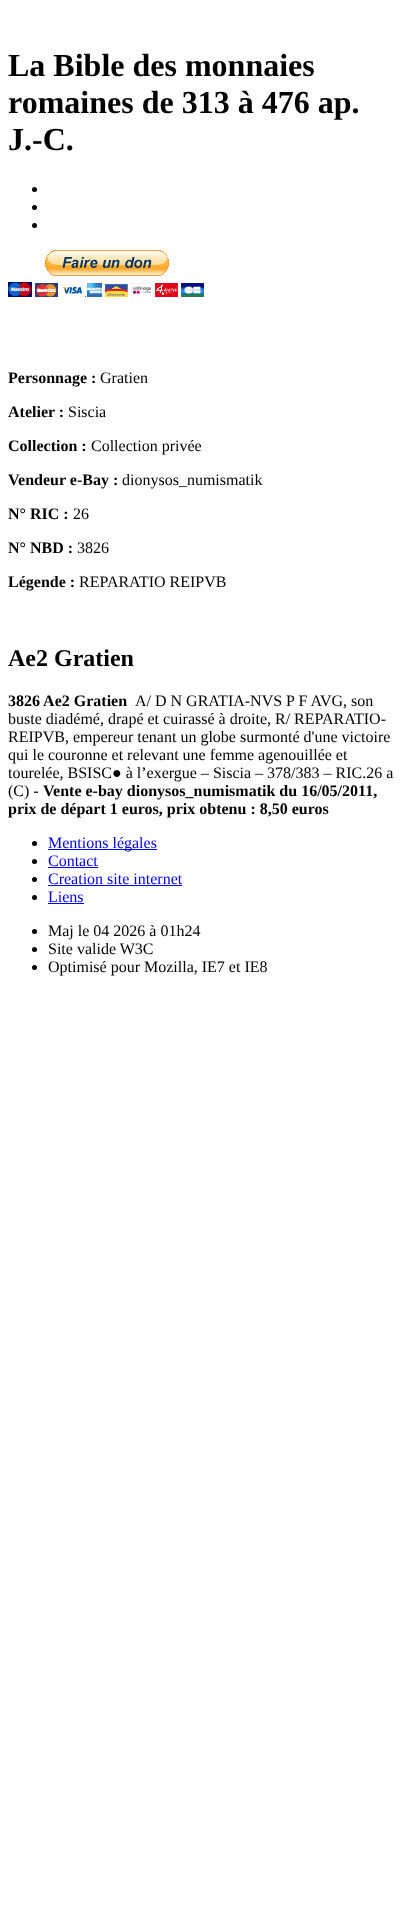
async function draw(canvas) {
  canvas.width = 404;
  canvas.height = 1928;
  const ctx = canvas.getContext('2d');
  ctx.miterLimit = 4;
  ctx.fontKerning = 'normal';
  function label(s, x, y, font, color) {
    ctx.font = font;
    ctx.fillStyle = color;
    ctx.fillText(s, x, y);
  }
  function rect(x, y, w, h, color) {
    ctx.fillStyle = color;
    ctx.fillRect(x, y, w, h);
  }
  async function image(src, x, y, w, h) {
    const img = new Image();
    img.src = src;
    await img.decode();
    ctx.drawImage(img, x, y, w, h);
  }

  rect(0, 0, 404, 1928, '#fff');
  label('La Bible des monnaies', 8, 76, 'bold 32px Liberation Serif', '#000');
  label('romaines de 313 à 476 ap.', 8, 113, 'bold 32px Liberation Serif', '#000');
  label('J.-C.', 8, 150, 'bold 32px Liberation Serif', '#000');
  ctx.beginPath();
  ctx.arc(34.5, 189.5, 2.5, 0, 2 * Math.PI);
  ctx.fill();
  ctx.beginPath();
  ctx.arc(34.5, 207.5, 2.5, 0, 2 * Math.PI);
  ctx.fill();
  ctx.beginPath();
  ctx.arc(34.5, 225.5, 2.5, 0, 2 * Math.PI);
  ctx.fill();
  await image('assets/img1.png', 8, 250, 196, 47);
  label('Personnage :', 8, 383, 'bold 16px Liberation Serif', '#000');
  label('Gratien', 100, 383, '16px Liberation Serif', '#000');
  label('Atelier :', 8, 417, 'bold 16px Liberation Serif', '#000');
  label('Siscia', 68, 417, '16px Liberation Serif', '#000');
  label('Collection :', 8, 451, 'bold 16px Liberation Serif', '#000');
  label('Collection privée', 91, 451, '16px Liberation Serif', '#000');
  label('Vendeur e-Bay :', 8, 485, 'bold 16px Liberation Serif', '#000');
  label('dionysos_numismatik', 122, 485, '16px Liberation Serif', '#000');
  label('N° RIC :', 8, 519, 'bold 16px Liberation Serif', '#000');
  label('26', 73, 519, '16px Liberation Serif', '#000');
  label('N° NBD :', 8, 553, 'bold 16px Liberation Serif', '#000');
  label('3826', 77, 553, '16px Liberation Serif', '#000');
  label('Légende :', 8, 587, 'bold 16px Liberation Serif', '#000');
  label('REPARATIO REIPVB', 79, 587, '16px Liberation Serif', '#000');
  label('Ae2 Gratien', 8, 666, 'bold 24px Liberation Serif', '#000');
  label('3826 Ae2 Gratien', 8, 706, 'bold 16px Liberation Serif', '#000');
  label('A/ D N GRATIA-NVS P F AVG, son', 135, 706, '16px Liberation Serif', '#000');
  label('buste diadémé, drapé et cuirassé à droite, R/ REPARATIO-', 8, 724, '16px Liberation Serif', '#000');
  label('REIPVB, empereur tenant un globe surmonté d\'une victoire', 8, 742, '16px Liberation Serif', '#000');
  label('qui le couronne et relevant une femme agenouillée et', 8, 760, '16px Liberation Serif', '#000');
  label('tourelée, BSISC● à l’exergue – Siscia – 378/383 – RIC.26 a', 8, 778, '16px Liberation Serif', '#000');
  label('(C) -', 8, 796, '16px Liberation Serif', '#000');
  label('Vente e-bay dionysos_numismatik du 16/05/2011,', 43, 796, 'bold 16px Liberation Serif', '#000');
  label('prix de départ 1 euros, prix obtenu : 8,50 euros', 8, 814, 'bold 16px Liberation Serif', '#000');
  ctx.beginPath();
  ctx.arc(34.5, 843.5, 2.5, 0, 2 * Math.PI);
  ctx.fill();
  rect(48, 849, 109, 1, '#00e');
  label('Mentions légales', 48, 848, '16px Liberation Serif', '#00e');
  ctx.fillStyle = '#000';
  ctx.beginPath();
  ctx.arc(34.5, 861.5, 2.5, 0, 2 * Math.PI);
  ctx.fill();
  label('Contact', 48, 866, '16px Liberation Serif', '#00e');
  rect(48, 867, 50, 1, '#00e');
  ctx.fillStyle = '#000';
  ctx.beginPath();
  ctx.arc(34.5, 879.5, 2.5, 0, 2 * Math.PI);
  ctx.fill();
  label('Creation site internet', 48, 884, '16px Liberation Serif', '#00e');
  rect(48, 885, 134, 1, '#00e');
  ctx.fillStyle = '#000';
  ctx.beginPath();
  ctx.arc(34.5, 897.5, 2.5, 0, 2 * Math.PI);
  ctx.fill();
  label('Liens', 48, 902, '16px Liberation Serif', '#00e');
  rect(48, 903, 36, 1, '#00e');
  ctx.fillStyle = '#000';
  ctx.beginPath();
  ctx.arc(34.5, 931.5, 2.5, 0, 2 * Math.PI);
  ctx.fill();
  label('Maj le 04 2026 à 01h24', 48, 936, '16px Liberation Serif', '#000');
  ctx.beginPath();
  ctx.arc(34.5, 949.5, 2.5, 0, 2 * Math.PI);
  ctx.fill();
  label('Site valide W3C', 48, 954, '16px Liberation Serif', '#000');
  ctx.beginPath();
  ctx.arc(34.5, 967.5, 2.5, 0, 2 * Math.PI);
  ctx.fill();
  label('Optimisé pour Mozilla, IE7 et IE8', 48, 972, '16px Liberation Serif', '#000');
}

draw(document.querySelector('canvas'));
